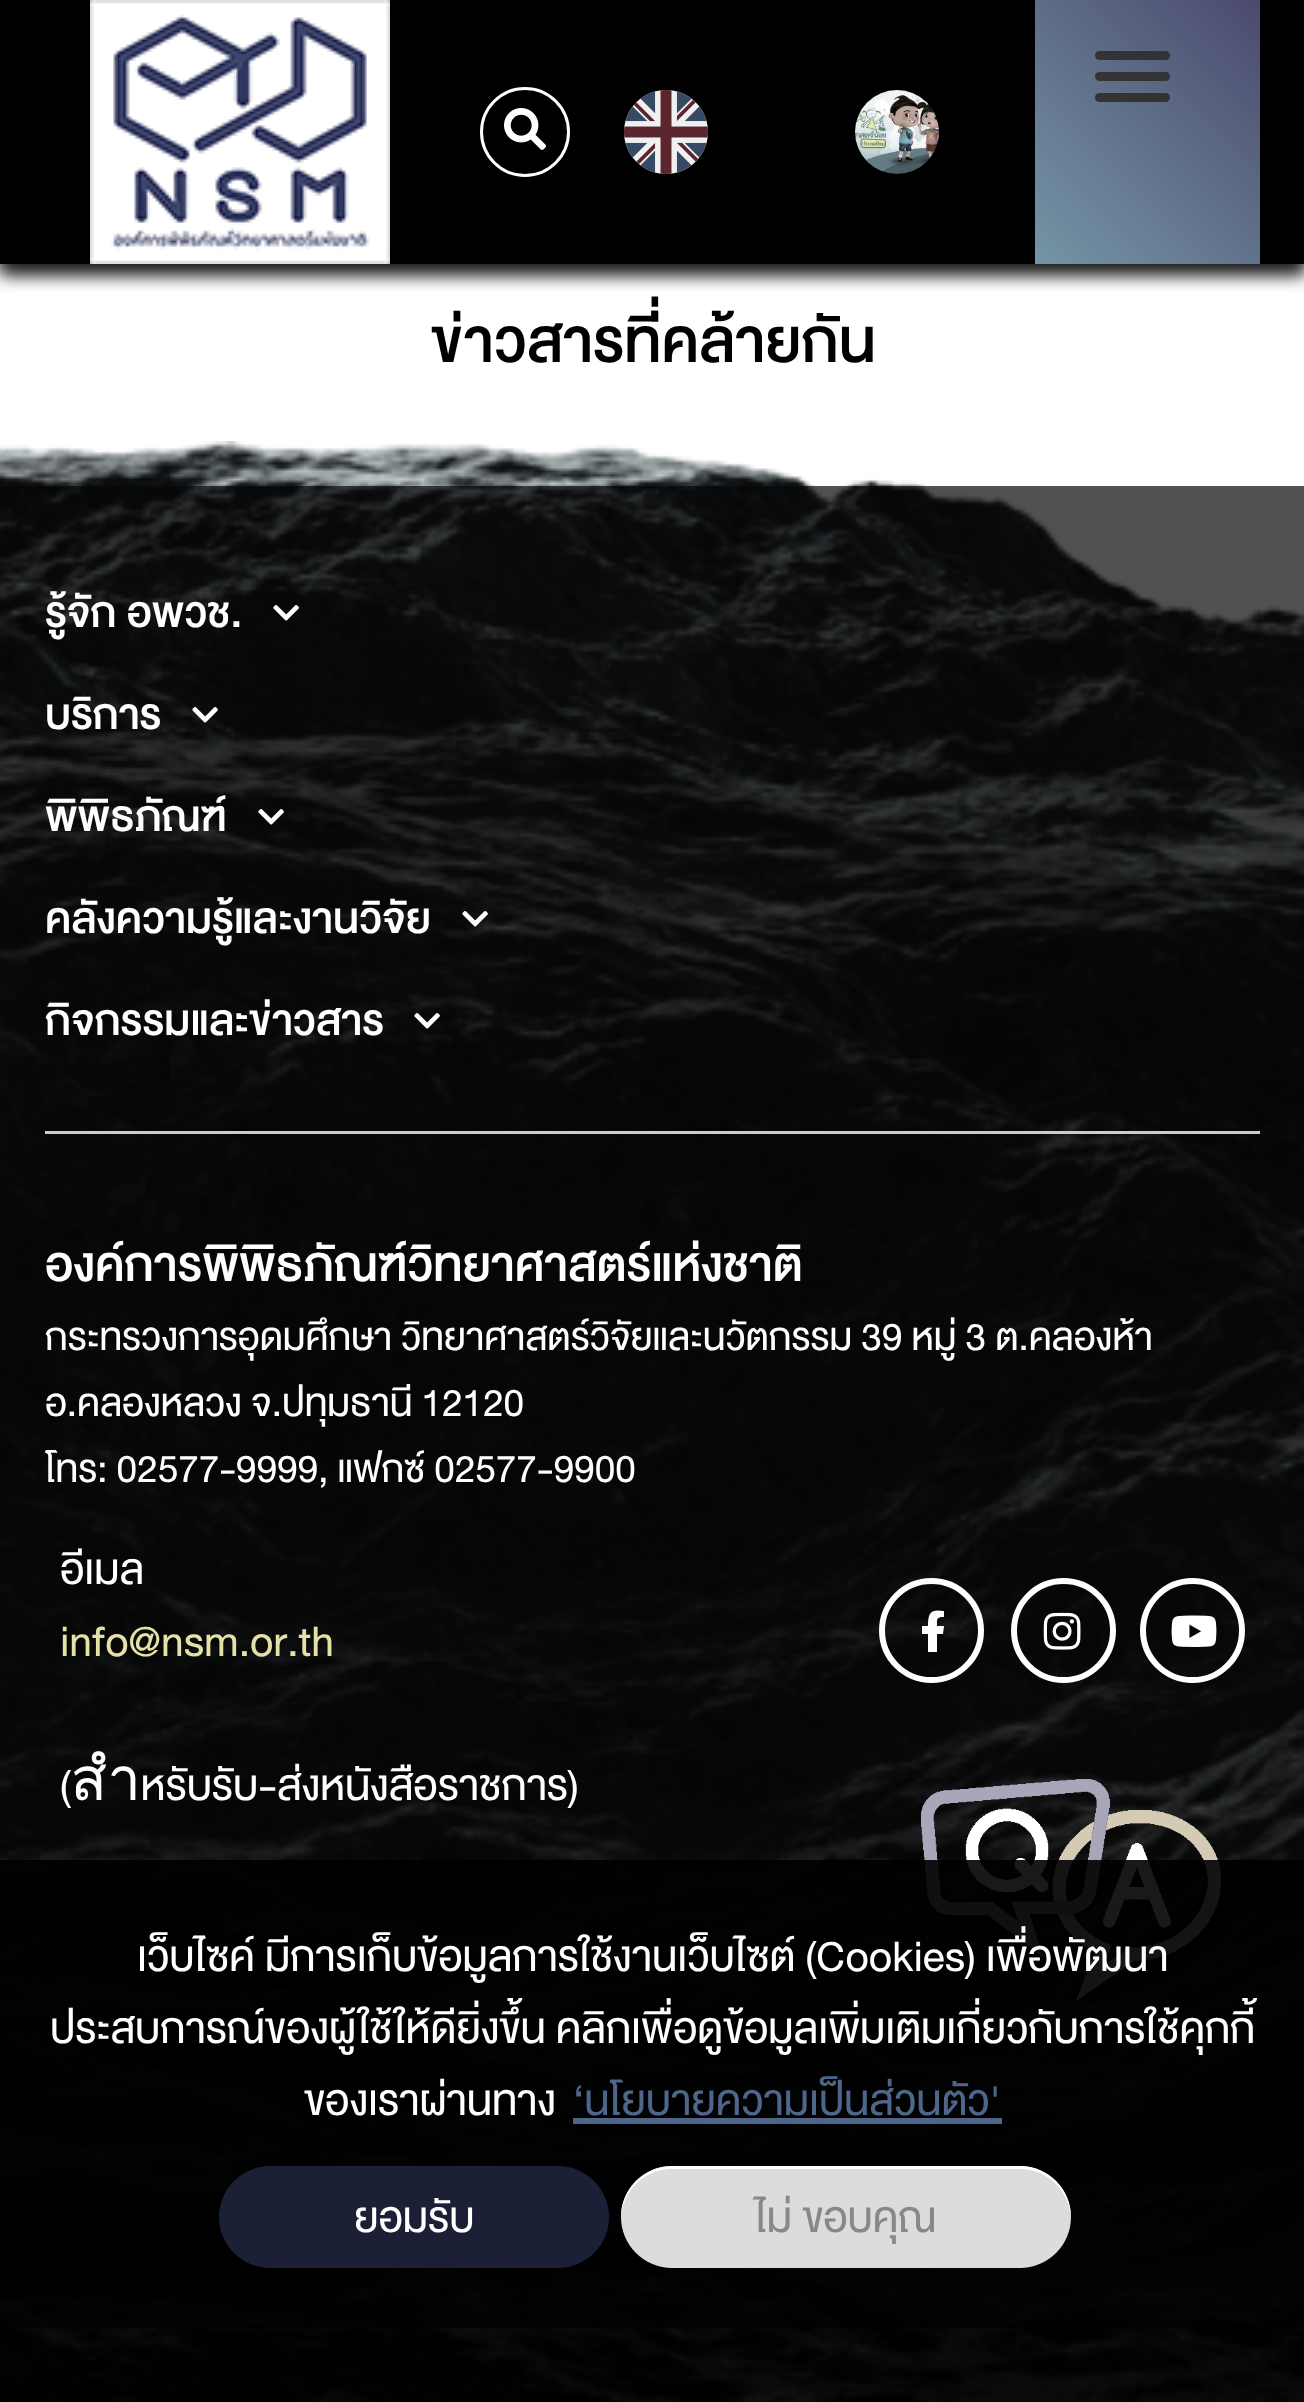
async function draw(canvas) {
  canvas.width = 1304;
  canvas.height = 2402;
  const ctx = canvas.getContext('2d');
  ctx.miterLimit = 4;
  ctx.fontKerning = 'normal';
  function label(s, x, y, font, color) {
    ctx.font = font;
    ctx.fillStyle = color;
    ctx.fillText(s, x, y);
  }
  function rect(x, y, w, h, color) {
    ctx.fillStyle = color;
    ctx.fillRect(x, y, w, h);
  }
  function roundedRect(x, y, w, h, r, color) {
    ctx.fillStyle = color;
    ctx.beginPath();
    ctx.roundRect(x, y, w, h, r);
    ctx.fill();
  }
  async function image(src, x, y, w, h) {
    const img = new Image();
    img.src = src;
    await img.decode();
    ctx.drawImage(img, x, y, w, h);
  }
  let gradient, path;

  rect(0, 0, 1304, 2402, '#fff');
  rect(802, 486, 502, 142, '#515151');
  ctx.fillStyle = '#000000b3';
  ctx.filter = 'blur(9px)';
  ctx.beginPath();
  ctx.rect(0, 9, 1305, 264);
  ctx.fill();
  ctx.filter = 'none';
  ctx.filter = 'blur(9px)';
  ctx.beginPath();
  ctx.rect(0, 9, 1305, 264);
  ctx.fill();
  ctx.filter = 'none';
  rect(0, 0, 1304, 264, '#000');
  await image('assets/img1.png', 90, 0, 300, 264);
  ctx.beginPath();
  ctx.arc(525, 132, 43.5, 0, 2 * Math.PI);
  ctx.strokeStyle = '#fff';
  ctx.lineWidth = 3;
  ctx.stroke();
  await image('assets/img2.png', 504, 108, 42, 42);
  await image('assets/img3.png', 624, 90, 84, 84);
  await image('assets/img4.png', 855, 90, 84, 84);
  gradient = ctx.createLinearGradient(1025, 254, 1270, 10);
  gradient.addColorStop(0, '#7495a6');
  gradient.addColorStop(1, '#4b4a6d');
  ctx.fillStyle = gradient;
  ctx.fillRect(1035, 0, 225, 264);
  roundedRect(1095, 51, 75, 9, 4.5, '#333');
  roundedRect(1095, 72, 75, 9, 4.5, '#333');
  roundedRect(1095, 93, 75, 9, 4.5, '#333');
  label('ข่าวสารที่่คล้ายกัน', 431, 362, '500 86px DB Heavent', '#000');
  await image('assets/img5.png', 0, 441, 1304, 1961);
  label('รู้จัก อพวช.', 45, 627, '500 60px DB Heavent', '#fff');
  await image('assets/img6.png', 273, 605, 26, 16);
  label('บริการ', 45, 729, '500 60px DB Heavent', '#fff');
  await image('assets/img7.png', 192, 707, 26, 16);
  label('พิพิธภัณฑ์', 45, 831, '500 60px DB Heavent', '#fff');
  await image('assets/img8.png', 258, 809, 26, 16);
  label('คลังความรู้และงานวิจัย', 45, 933, '500 60px DB Heavent', '#fff');
  await image('assets/img9.png', 462, 911, 26, 16);
  label('กิจกรรมและข่าวสาร', 45, 1035, '500 60px DB Heavent', '#fff');
  await image('assets/img10.png', 414, 1013, 26, 16);
  rect(45, 1131, 1215, 3, '#ccc');
  label('องค์การพิพิธภัณฑ์วิทยาศาสตร์แห่งชาติ', 45, 1281, '500 67.75px DB Heavent', '#fff');
  label('กระทรวงการอุดมศึกษา วิทยาศาสตร์วิจัยและนวัตกรรม 39 หมู่ 3 ต.คลองห้า', 45, 1350, '54px DB Heavent', '#fff');
  label('อ.คลองหลวง จ.ปทุมธานี 12120', 45, 1416, '54px DB Heavent', '#fff');
  label('โทร: 02577-9999, แฟกซ์ 02577-9900', 45, 1482, '54px DB Heavent', '#fff');
  label('อีเมล', 60, 1584, '60px DB Heavent', '#fff');
  label('info@nsm.or.th', 60, 1656, '60px DB Heavent', '#e6e1a7');
  label('(สำหรับรับ-ส่งหนังสือราชการ)', 60, 1800, '60px DB Heavent', '#fff');
  ctx.beginPath();
  ctx.arc(931.5, 1630.5, 49.5, 0, 2 * Math.PI);
  ctx.lineWidth = 6;
  ctx.stroke();
  path = new Path2D('M943 1634H937V1652H928V1634H922V1626H928C928 1612 931 1609 944 1611V1617C936 1617 937 1619 937 1626H944Z');
  ctx.fill(path);
  ctx.beginPath();
  ctx.arc(1063.5, 1630.5, 49.5, 0, 2 * Math.PI);
  ctx.stroke();
  await image('assets/img11.png', 1043, 1612, 38, 38);
  ctx.beginPath();
  ctx.arc(1192.5, 1630.5, 49.5, 0, 2 * Math.PI);
  ctx.stroke();
  await image('assets/img12.png', 1171, 1615, 46, 32);
  await image('assets/img13.png', 921, 1779, 300, 222);
  rect(0, 1860, 1304, 542, '#000000e6');
  label('เว็บไซค์ มีการเก็บข้อมูลการใช้งานเว็บไซต์ (Cookies) เพื่อพัฒนา', 137, 1971, '60px DB Heavent', '#fff');
  label('ประสบการณ์ของผู้ใช้ให้ดียิ่งขึ้น คลิกเพื่อดูข้อมูลเพิ่มเติมเกี่ยวกับการใช้คุกกี้', 50, 2043, '60px DB Heavent', '#fff');
  label('ของเราผ่านทาง', 304, 2115, '60px DB Heavent', '#fff');
  label('‘นโยบายความเป็นส่วนตัว\'', 573, 2115, '60px DB Heavent', '#4e668a');
  rect(573, 2118, 429, 6, '#4e668a');
  roundedRect(219, 2166, 390, 102, 51, '#1b2037');
  label('ยอมรับ', 354, 2232, '60px DB Heavent', '#fff');
  roundedRect(621, 2166, 450, 102, 51, '#dcdcdc');
  ctx.fillStyle = '#fff';
  path = new Path2D('M672 2169H1020C1048 2169 1070 2191 1071 2219V2217C1071 2189 1048 2166 1020 2166H672C644 2166 621 2189 621 2217V2219C622 2191 644 2169 672 2169Z');
  ctx.fill(path);
  label('ไม่ ขอบคุณ', 755, 2232, '60px DB Heavent', '#888');
}

draw(document.querySelector('canvas'));
